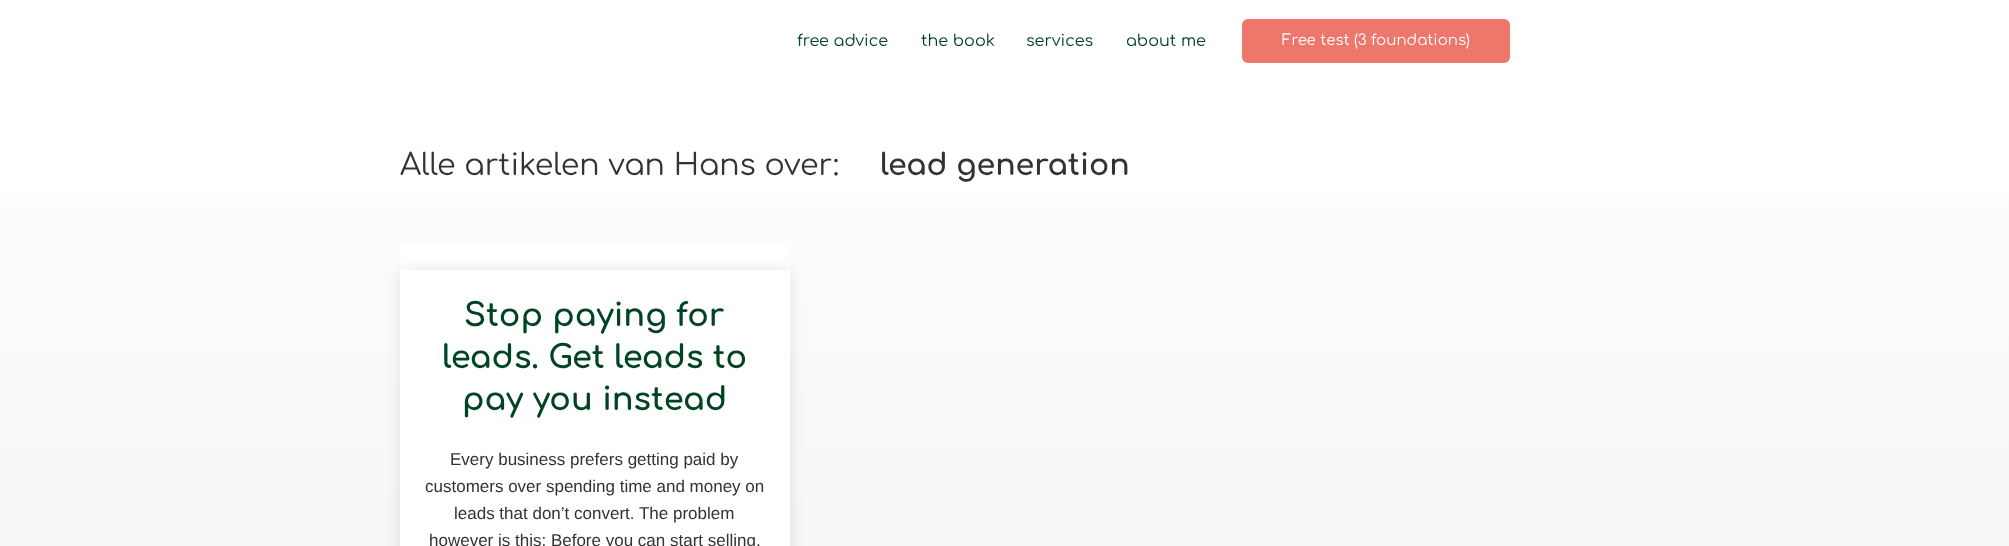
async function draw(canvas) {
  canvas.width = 2009;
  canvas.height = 546;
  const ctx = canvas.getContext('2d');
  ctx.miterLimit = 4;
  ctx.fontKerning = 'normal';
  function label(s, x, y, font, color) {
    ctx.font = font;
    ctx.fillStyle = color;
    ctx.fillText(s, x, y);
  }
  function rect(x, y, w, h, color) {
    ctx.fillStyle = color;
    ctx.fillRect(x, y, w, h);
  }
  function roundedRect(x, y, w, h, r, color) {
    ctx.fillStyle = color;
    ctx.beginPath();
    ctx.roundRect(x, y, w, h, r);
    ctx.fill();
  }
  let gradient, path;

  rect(0, 0, 2009, 546, '#fff');
  label('free advice', 797, 46, '16px Comfortaa', '#042');
  label('the book', 921, 46, '16px Comfortaa', '#042');
  label('services', 1026, 46, '16px Comfortaa', '#042');
  label('about me', 1126, 46, '16px Comfortaa', '#042');
  roundedRect(1242, 19, 268, 44, 6, '#ed776b');
  label('Free test (3 foundations)', 1282, 45, '15px Comfortaa', '#fff');
  gradient = ctx.createLinearGradient(1005, 82, 1005, 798);
  gradient.addColorStop(0, '#fff');
  gradient.addColorStop(1, '#eff2f4');
  ctx.fillStyle = gradient;
  ctx.fillRect(0, 194, 2009, 352);
  label('Alle artikelen van Hans over:', 400, 175, '30px Comfortaa', '#333');
  label('lead generation', 880, 175, 'bold 30px Comfortaa', '#333');
  rect(400, 243, 390, 303, '#fff');
  ctx.save();
  path = new Path2D('M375 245H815V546H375ZM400 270H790V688H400Z');
  ctx.clip(path, 'evenodd');
  ctx.fillStyle = '#0000001a';
  ctx.filter = 'blur(8px)';
  ctx.beginPath();
  ctx.rect(400, 270, 390, 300);
  ctx.fill();
  ctx.filter = 'none';
  ctx.restore();
  label('Stop paying for', 464, 326, 'bold 32px Comfortaa', '#042');
  label('leads. Get leads to', 442, 368, 'bold 32px Comfortaa', '#042');
  label('pay you instead', 462, 410, 'bold 32px Comfortaa', '#042');
  label('Every business prefers getting paid by', 450, 465, '17px Liberation Sans', '#333');
  label('customers over spending time and money on', 425, 492, '17px Liberation Sans', '#333');
  label('leads that don’t convert. The problem', 454, 519, '17px Liberation Sans', '#333');
  label('however is this: Before you can start selling,', 429, 546, '17px Liberation Sans', '#333');
}

draw(document.querySelector('canvas'));
